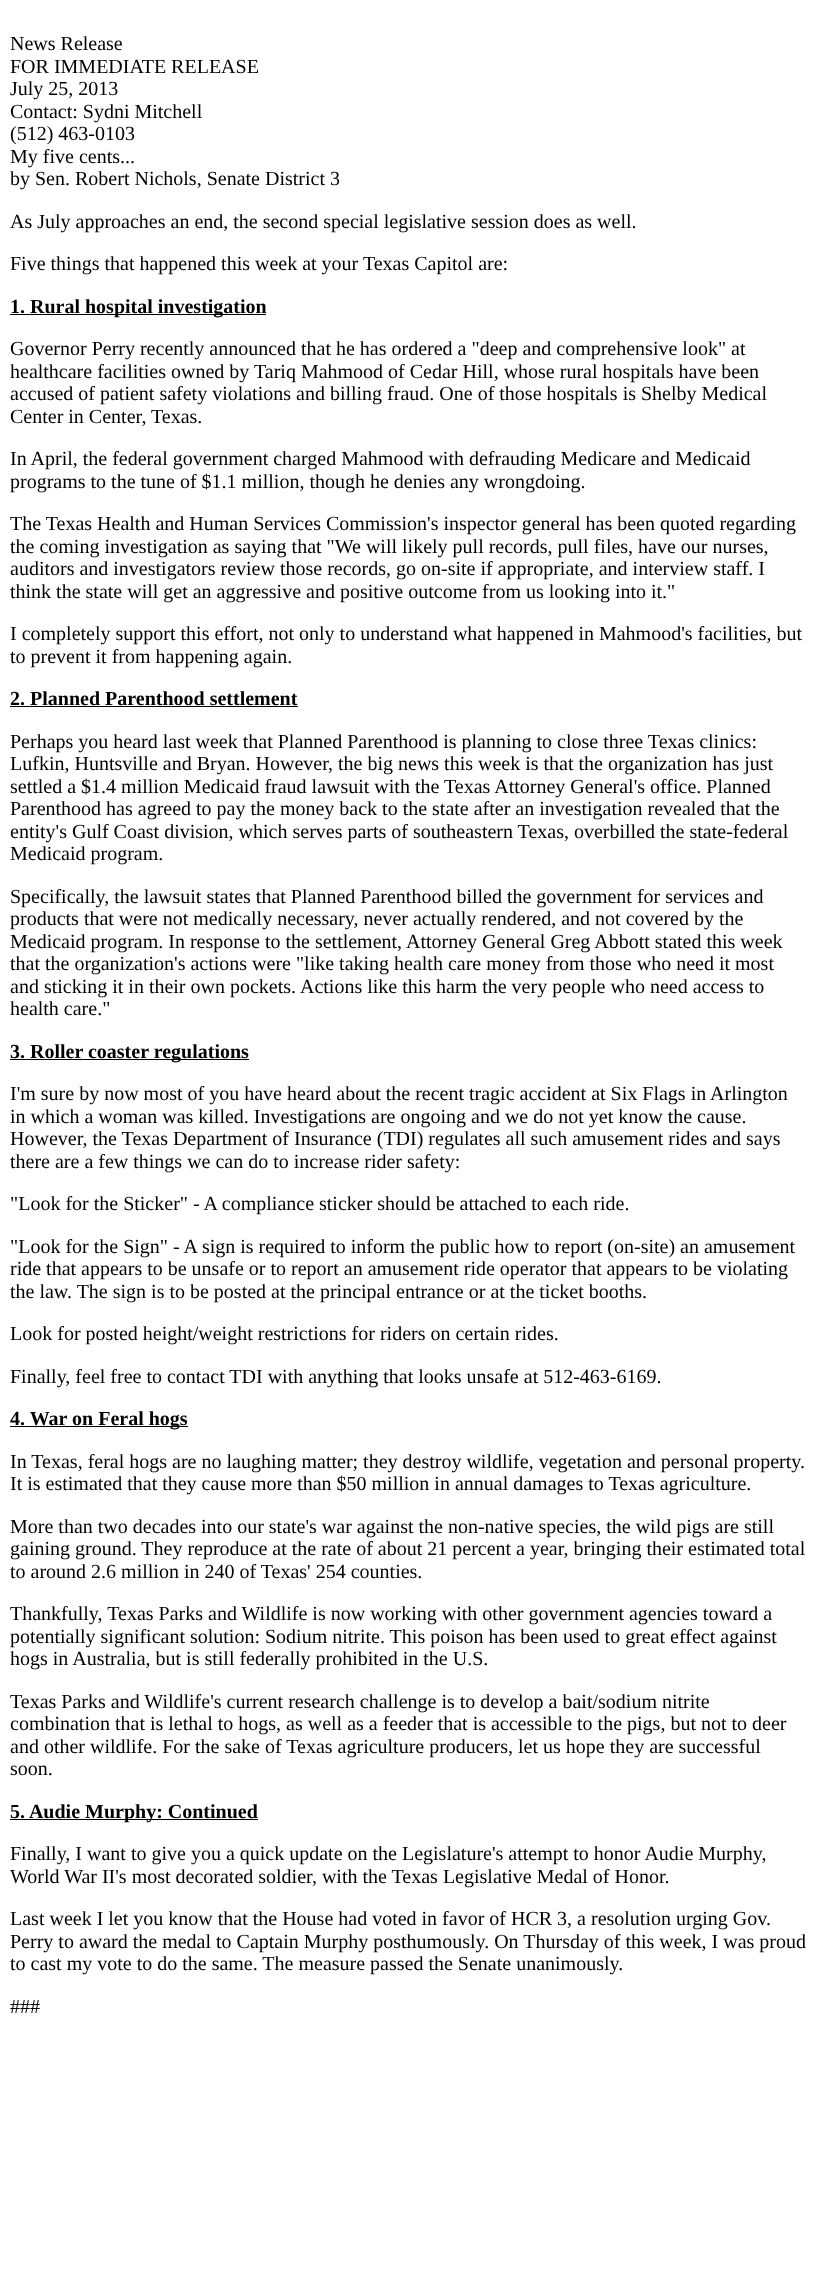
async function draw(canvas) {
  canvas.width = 816;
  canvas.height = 2281;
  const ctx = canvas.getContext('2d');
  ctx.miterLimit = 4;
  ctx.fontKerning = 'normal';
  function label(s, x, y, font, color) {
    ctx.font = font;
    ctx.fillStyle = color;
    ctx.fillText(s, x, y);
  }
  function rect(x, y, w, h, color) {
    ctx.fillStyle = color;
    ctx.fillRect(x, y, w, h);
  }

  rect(0, 0, 816, 2281, '#fff');
  label('News Release', 10, 50, '20px Liberation Serif', '#000');
  label('FOR IMMEDIATE RELEASE', 10, 73, '20px Liberation Serif', '#000');
  label('July 25, 2013', 10, 95, '20px Liberation Serif', '#000');
  label('Contact: Sydni Mitchell', 10, 118, '20px Liberation Serif', '#000');
  label('(512) 463-0103', 10, 140, '20px Liberation Serif', '#000');
  label('My five cents...', 10, 163, '20px Liberation Serif', '#000');
  label('by Sen. Robert Nichols, Senate District 3', 10, 185, '20px Liberation Serif', '#000');
  label('As July approaches an end, the second special legislative session does as well.', 10, 228, '20px Liberation Serif', '#000');
  label('Five things that happened this week at your Texas Capitol are:', 10, 270, '20px Liberation Serif', '#000');
  rect(10, 314, 256, 1, '#000');
  label('1. Rural hospital investigation', 10, 313, 'bold 20px Liberation Serif', '#000');
  label('Governor Perry recently announced that he has ordered a "deep and comprehensive look" at', 10, 355, '20px Liberation Serif', '#000');
  label('healthcare facilities owned by Tariq Mahmood of Cedar Hill, whose rural hospitals have been', 10, 378, '20px Liberation Serif', '#000');
  label('accused of patient safety violations and billing fraud. One of those hospitals is Shelby Medical', 10, 400, '20px Liberation Serif', '#000');
  label('Center in Center, Texas.', 10, 423, '20px Liberation Serif', '#000');
  label('In April, the federal government charged Mahmood with defrauding Medicare and Medicaid', 10, 465, '20px Liberation Serif', '#000');
  label('programs to the tune of $1.1 million, though he denies any wrongdoing.', 10, 488, '20px Liberation Serif', '#000');
  label('The Texas Health and Human Services Commission\'s inspector general has been quoted regarding', 10, 530, '20px Liberation Serif', '#000');
  label('the coming investigation as saying that "We will likely pull records, pull files, have our nurses,', 10, 553, '20px Liberation Serif', '#000');
  label('auditors and investigators review those records, go on-site if appropriate, and interview staff. I', 10, 575, '20px Liberation Serif', '#000');
  label('think the state will get an aggressive and positive outcome from us looking into it."', 10, 598, '20px Liberation Serif', '#000');
  label('I completely support this effort, not only to understand what happened in Mahmood\'s facilities, but', 10, 640, '20px Liberation Serif', '#000');
  label('to prevent it from happening again.', 10, 663, '20px Liberation Serif', '#000');
  label('2. Planned Parenthood settlement', 10, 705, 'bold 20px Liberation Serif', '#000');
  rect(10, 706, 288, 1, '#000');
  label('Perhaps you heard last week that Planned Parenthood is planning to close three Texas clinics:', 10, 748, '20px Liberation Serif', '#000');
  label('Lufkin, Huntsville and Bryan. However, the big news this week is that the organization has just', 10, 770, '20px Liberation Serif', '#000');
  label('settled a $1.4 million Medicaid fraud lawsuit with the Texas Attorney General\'s office. Planned', 10, 793, '20px Liberation Serif', '#000');
  label('Parenthood has agreed to pay the money back to the state after an investigation revealed that the', 10, 815, '20px Liberation Serif', '#000');
  label('entity\'s Gulf Coast division, which serves parts of southeastern Texas, overbilled the state-federal', 10, 838, '20px Liberation Serif', '#000');
  label('Medicaid program.', 10, 860, '20px Liberation Serif', '#000');
  label('Specifically, the lawsuit states that Planned Parenthood billed the government for services and', 10, 903, '20px Liberation Serif', '#000');
  label('products that were not medically necessary, never actually rendered, and not covered by the', 10, 925, '20px Liberation Serif', '#000');
  label('Medicaid program. In response to the settlement, Attorney General Greg Abbott stated this week', 10, 948, '20px Liberation Serif', '#000');
  label('that the organization\'s actions were "like taking health care money from those who need it most', 10, 970, '20px Liberation Serif', '#000');
  label('and sticking it in their own pockets. Actions like this harm the very people who need access to', 10, 993, '20px Liberation Serif', '#000');
  label('health care."', 10, 1015, '20px Liberation Serif', '#000');
  rect(10, 1059, 239, 1, '#000');
  label('3. Roller coaster regulations', 10, 1058, 'bold 20px Liberation Serif', '#000');
  label('I\'m sure by now most of you have heard about the recent tragic accident at Six Flags in Arlington', 10, 1100, '20px Liberation Serif', '#000');
  label('in which a woman was killed. Investigations are ongoing and we do not yet know the cause.', 10, 1123, '20px Liberation Serif', '#000');
  label('However, the Texas Department of Insurance (TDI) regulates all such amusement rides and says', 10, 1145, '20px Liberation Serif', '#000');
  label('there are a few things we can do to increase rider safety:', 10, 1168, '20px Liberation Serif', '#000');
  label('"Look for the Sticker" - A compliance sticker should be attached to each ride.', 10, 1210, '20px Liberation Serif', '#000');
  label('"Look for the Sign" - A sign is required to inform the public how to report (on-site) an amusement', 10, 1253, '20px Liberation Serif', '#000');
  label('ride that appears to be unsafe or to report an amusement ride operator that appears to be violating', 10, 1275, '20px Liberation Serif', '#000');
  label('the law. The sign is to be posted at the principal entrance or at the ticket booths.', 10, 1298, '20px Liberation Serif', '#000');
  label('Look for posted height/weight restrictions for riders on certain rides.', 10, 1340, '20px Liberation Serif', '#000');
  label('Finally, feel free to contact TDI with anything that looks unsafe at 512-463-6169.', 10, 1383, '20px Liberation Serif', '#000');
  rect(10, 1426, 178, 1, '#000');
  label('4. War on Feral hogs', 10, 1425, 'bold 20px Liberation Serif', '#000');
  label('In Texas, feral hogs are no laughing matter; they destroy wildlife, vegetation and personal property.', 10, 1468, '20px Liberation Serif', '#000');
  label('It is estimated that they cause more than $50 million in annual damages to Texas agriculture.', 10, 1490, '20px Liberation Serif', '#000');
  label('More than two decades into our state\'s war against the non-native species, the wild pigs are still', 10, 1533, '20px Liberation Serif', '#000');
  label('gaining ground. They reproduce at the rate of about 21 percent a year, bringing their estimated total', 10, 1555, '20px Liberation Serif', '#000');
  label('to around 2.6 million in 240 of Texas\' 254 counties.', 10, 1578, '20px Liberation Serif', '#000');
  label('Thankfully, Texas Parks and Wildlife is now working with other government agencies toward a', 10, 1620, '20px Liberation Serif', '#000');
  label('potentially significant solution: Sodium nitrite. This poison has been used to great effect against', 10, 1643, '20px Liberation Serif', '#000');
  label('hogs in Australia, but is still federally prohibited in the U.S.', 10, 1665, '20px Liberation Serif', '#000');
  label('Texas Parks and Wildlife\'s current research challenge is to develop a bait/sodium nitrite', 10, 1708, '20px Liberation Serif', '#000');
  label('combination that is lethal to hogs, as well as a feeder that is accessible to the pigs, but not to deer', 10, 1730, '20px Liberation Serif', '#000');
  label('and other wildlife. For the sake of Texas agriculture producers, let us hope they are successful', 10, 1753, '20px Liberation Serif', '#000');
  label('soon.', 10, 1775, '20px Liberation Serif', '#000');
  rect(10, 1819, 248, 1, '#000');
  label('5. Audie Murphy: Continued', 10, 1818, 'bold 20px Liberation Serif', '#000');
  label('Finally, I want to give you a quick update on the Legislature\'s attempt to honor Audie Murphy,', 10, 1860, '20px Liberation Serif', '#000');
  label('World War II\'s most decorated soldier, with the Texas Legislative Medal of Honor.', 10, 1883, '20px Liberation Serif', '#000');
  label('Last week I let you know that the House had voted in favor of HCR 3, a resolution urging Gov.', 10, 1925, '20px Liberation Serif', '#000');
  label('Perry to award the medal to Captain Murphy posthumously. On Thursday of this week, I was proud', 10, 1948, '20px Liberation Serif', '#000');
  label('to cast my vote to do the same. The measure passed the Senate unanimously.', 10, 1970, '20px Liberation Serif', '#000');
  label('###', 10, 2013, '20px Liberation Serif', '#000');
}

draw(document.querySelector('canvas'));
